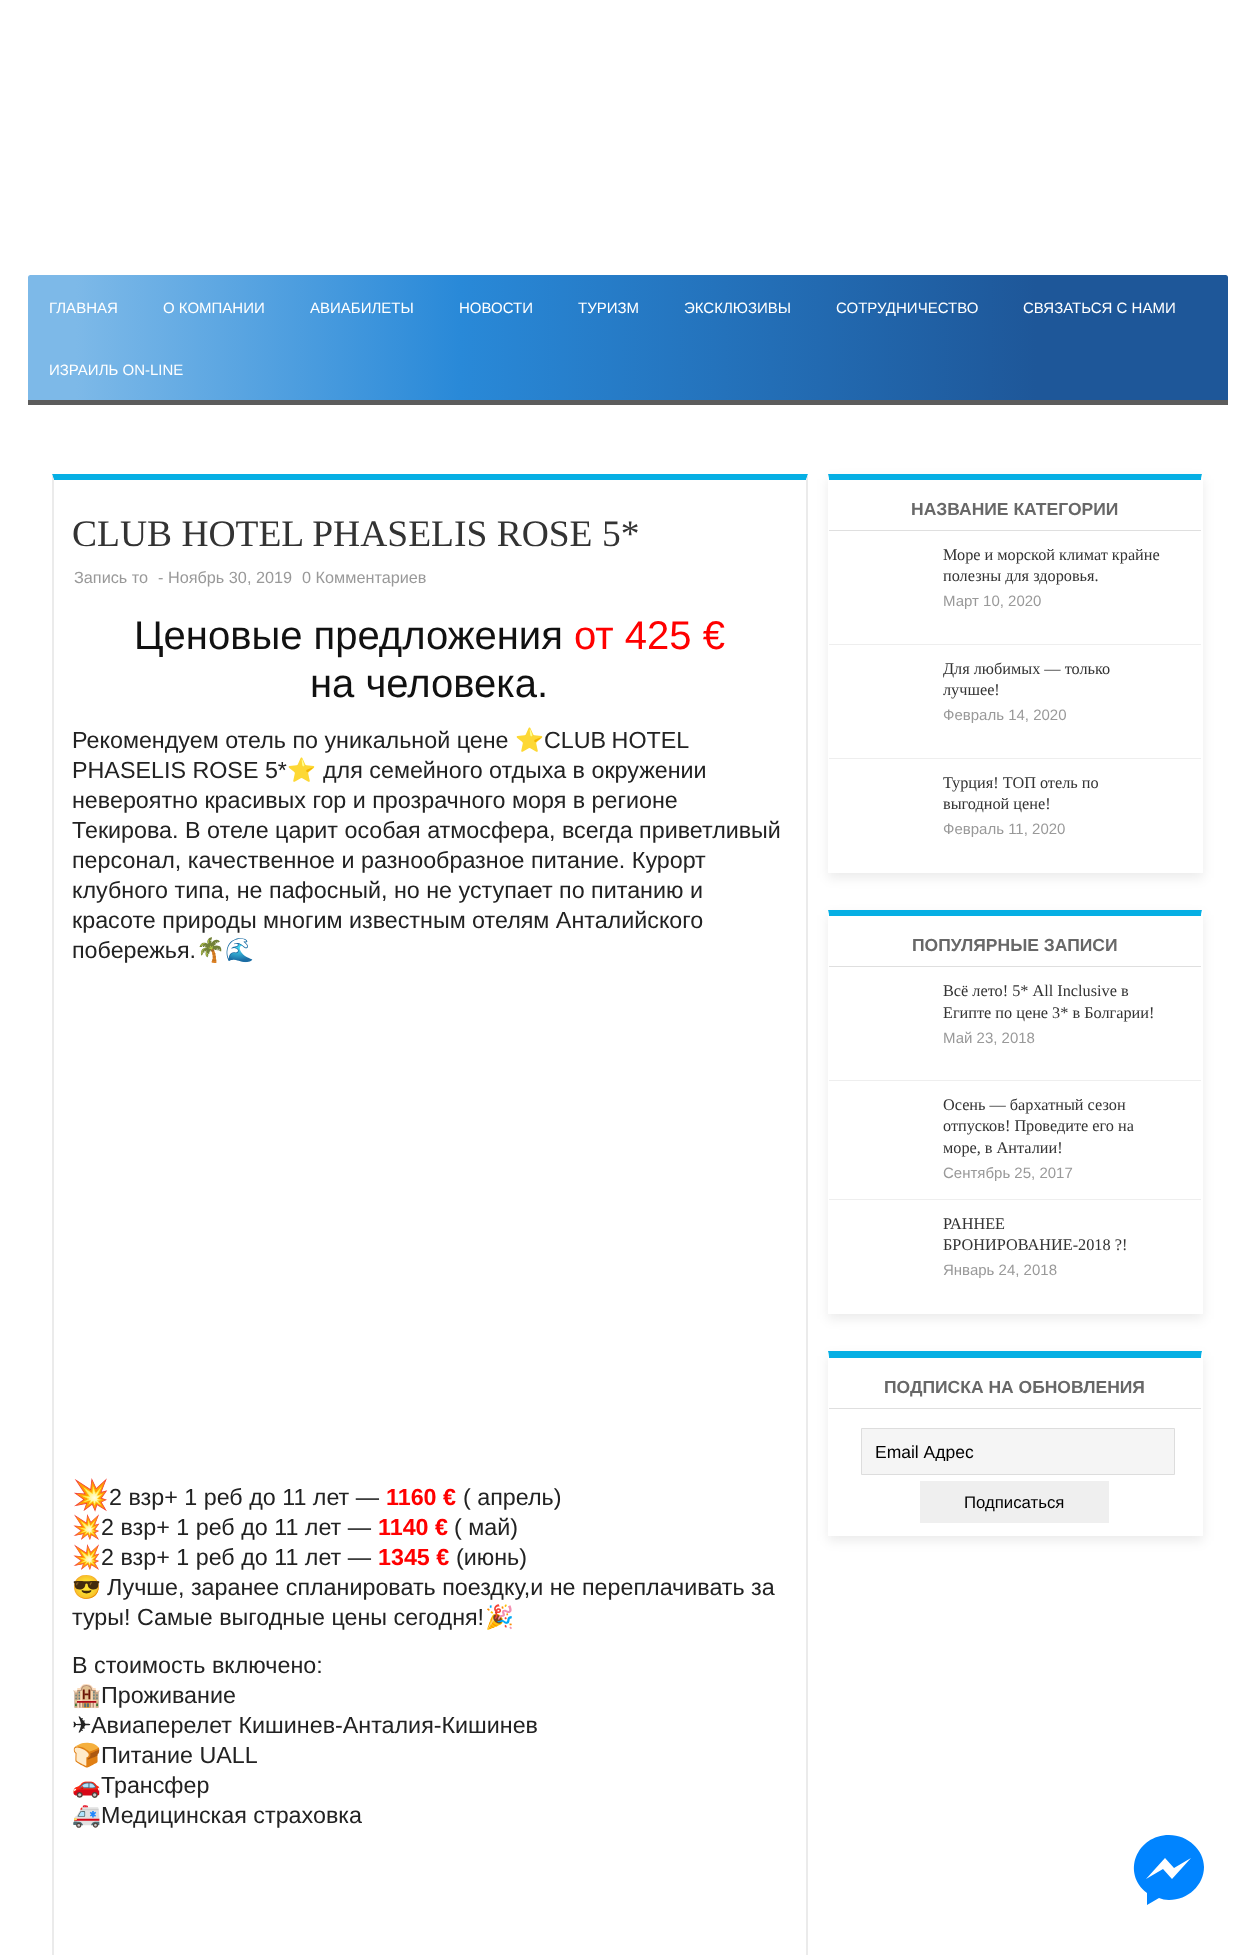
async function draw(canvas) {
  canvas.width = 1253;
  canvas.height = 1955;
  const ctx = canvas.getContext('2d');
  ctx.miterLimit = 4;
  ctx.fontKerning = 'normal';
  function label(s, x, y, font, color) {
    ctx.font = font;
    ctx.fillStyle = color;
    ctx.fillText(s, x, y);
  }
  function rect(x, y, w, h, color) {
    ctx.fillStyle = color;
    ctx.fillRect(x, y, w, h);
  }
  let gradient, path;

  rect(0, 0, 1253, 1955, '#fff');
  gradient = ctx.createLinearGradient(28, 338, 1228, 337);
  gradient.addColorStop(0.04, '#7db9e8');
  gradient.addColorStop(0.36, '#2989d8');
  gradient.addColorStop(0.84, '#1e5799');
  ctx.fillStyle = gradient;
  ctx.beginPath();
  ctx.roundRect(28, 275, 1200, 130, [2.5, 2.5, 0, 0]);
  ctx.fill();
  rect(28, 400, 1200, 5, '#5c5c5c');
  label('ГЛАВНАЯ', 49, 313, '15px Liberation Sans', '#fff');
  label('О КОМПАНИИ', 163, 313, '15px Liberation Sans', '#fff');
  label('АВИАБИЛЕТЫ', 310, 313, '15px Liberation Sans', '#fff');
  label('НОВОСТИ', 459, 313, '15px Liberation Sans', '#fff');
  label('ТУРИЗМ', 578, 313, '15px Liberation Sans', '#fff');
  label('ЭКСКЛЮЗИВЫ', 684, 313, '15px Liberation Sans', '#fff');
  label('СОТРУДНИЧЕСТВО', 836, 313, '15px Liberation Sans', '#fff');
  label('СВЯЗАТЬСЯ С НАМИ', 1023, 313, '15px Liberation Sans', '#fff');
  label('ИЗРАИЛЬ ON-LINE', 49, 375, '15px Liberation Sans', '#fff');
  ctx.fillStyle = '#06afe4';
  path = new Path2D('M52 474H808L806 480H54Z');
  ctx.fill(path);
  ctx.fillStyle = '#ebebeb';
  path = new Path2D('M808 474V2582L806 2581V480Z');
  ctx.fill(path);
  path = new Path2D('M52 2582V474L54 480V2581Z');
  ctx.fill(path);
  label('CLUB HOTEL PHASELIS ROSE 5*', 72, 546, '37.5px Liberation Serif', '#333');
  label('Запись то', 74, 583, '16.25px Liberation Sans', '#999');
  label('- Ноябрь 30, 2019', 158, 583, '16.25px Liberation Sans', '#999');
  label('0 Комментариев', 302, 583, '16.25px Liberation Sans', '#999');
  label('Ценовые предложения', 134, 649, '40px Liberation Sans', '#111');
  label('от 425 €', 574, 649, '40px Liberation Sans', '#f00');
  label('на человека.', 310, 697, '40px Liberation Sans', '#111');
  label('Рекомендуем отель по уникальной цене', 72, 748, '23.3px Liberation Sans', '#222');
  label('⭐️', 515, 748, '23.3px Noto Color Emoji', '#222');
  ctx.wordSpacing = '-1px';
  label('CLUB HOTEL', 544, 748, '23.3px Liberation Sans', '#222');
  ctx.wordSpacing = '0px';
  label('PHASELIS ROSE 5*', 72, 778, '23.3px Liberation Sans', '#222');
  label('⭐️', 287, 778, '23.3px Noto Color Emoji', '#222');
  label('для семейного отдыха в окружении', 323, 778, '23.3px Liberation Sans', '#222');
  label('невероятно красивых гор и прозрачного моря в регионе', 72, 808, '23.3px Liberation Sans', '#222');
  label('Текирова. В отеле царит особая атмосфера, всегда приветливый', 72, 838, '23.3px Liberation Sans', '#222');
  label('персонал, качественное и разнообразное питание. Курорт', 72, 868, '23.3px Liberation Sans', '#222');
  label('клубного типа, не пафосный, но не уступает по питанию и', 72, 898, '23.3px Liberation Sans', '#222');
  label('красоте природы многим известным отелям Анталийского', 72, 928, '23.3px Liberation Sans', '#222');
  label('побережья.', 72, 958, '23.3px Liberation Sans', '#222');
  label('🌴🌊', 196, 958, '23.3px Noto Color Emoji', '#222');
  label('💥', 72, 1505, '30px Noto Color Emoji', '#222');
  label('2 взр+ 1 реб до 11 лет —', 109, 1505, '23.3px Liberation Sans', '#222');
  label('1160 €', 386, 1505, 'bold 23.3px Liberation Sans', '#f00');
  label('( апрель)', 463, 1505, '23.3px Liberation Sans', '#222');
  label('💥', 72, 1535, '23.3px Noto Color Emoji', '#222');
  label('2 взр+ 1 реб до 11 лет —', 101, 1535, '23.3px Liberation Sans', '#222');
  label('1140 €', 378, 1535, 'bold 23.3px Liberation Sans', '#f00');
  label('( май)', 454, 1535, '23.3px Liberation Sans', '#222');
  label('💥', 72, 1565, '23.3px Noto Color Emoji', '#222');
  label('2 взр+ 1 реб до 11 лет —', 101, 1565, '23.3px Liberation Sans', '#222');
  label('1345 €', 378, 1565, 'bold 23.3px Liberation Sans', '#f00');
  label('(июнь)', 456, 1565, '23.3px Liberation Sans', '#222');
  label('😎', 72, 1595, '23.3px Noto Color Emoji', '#222');
  label('Лучше, заранее спланировать поездку,и не переплачивать за', 107, 1595, '23.3px Liberation Sans', '#222');
  label('туры! Самые выгодные цены сегодня!', 72, 1625, '23.3px Liberation Sans', '#222');
  label('🎉', 485, 1625, '23.3px Noto Color Emoji', '#222');
  label('В стоимость включено:', 72, 1673, '23.3px Liberation Sans', '#222');
  label('🏨', 72, 1703, '23.3px Noto Color Emoji', '#222');
  label('Проживание', 101, 1703, '23.3px Liberation Sans', '#222');
  label('✈', 72, 1733, '23.3px DejaVu Sans', '#222');
  label('Авиаперелет Кишинев-Анталия-Кишинев', 91, 1733, '23.3px Liberation Sans', '#222');
  label('🍞', 72, 1763, '23.3px Noto Color Emoji', '#222');
  label('Питание UALL', 101, 1763, '23.3px Liberation Sans', '#222');
  label('🚗', 72, 1793, '23.3px Noto Color Emoji', '#222');
  label('Трансфер', 101, 1793, '23.3px Liberation Sans', '#222');
  label('🚑', 72, 1823, '23.3px Noto Color Emoji', '#222');
  label('Медицинская страховка', 101, 1823, '23.3px Liberation Sans', '#222');
  ctx.save();
  path = new Path2D('M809 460H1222V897H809ZM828 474H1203V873H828Z');
  ctx.clip(path, 'evenodd');
  ctx.fillStyle = '#00000014';
  ctx.filter = 'blur(6px)';
  ctx.beginPath();
  ctx.rect(828, 479, 375, 399);
  ctx.fill();
  ctx.filter = 'none';
  ctx.restore();
  ctx.fillStyle = '#06afe4';
  path = new Path2D('M828 474H1202L1201 480H829Z');
  ctx.fill(path);
  ctx.fillStyle = '#fff';
  path = new Path2D('M1202 474V872L1201 871V480Z');
  ctx.fill(path);
  rect(1202, 871, 1, 1, '#fff');
  path = new Path2D('M828 872V474L829 480V871Z');
  ctx.fill(path);
  rect(829, 530, 372, 1, '#dfdfdf');
  label('НАЗВАНИЕ КАТЕГОРИИ', 911, 515, 'bold 17.5px Liberation Sans', '#686868');
  rect(829, 644, 372, 1, '#eee');
  label('Море и морской климат крайне', 943, 560, '16.25px Liberation Serif', '#333');
  label('полезны для здоровья.', 943, 581, '16.25px Liberation Serif', '#333');
  label('Март 10, 2020', 943, 606, '15px Liberation Sans', '#999');
  rect(829, 758, 372, 1, '#eee');
  label('Для любимых — только', 943, 674, '16.25px Liberation Serif', '#333');
  label('лучшее!', 943, 695, '16.25px Liberation Serif', '#333');
  label('Февраль 14, 2020', 943, 720, '15px Liberation Sans', '#999');
  label('Турция! ТОП отель по', 943, 788, '16.25px Liberation Serif', '#333');
  label('выгодной цене!', 943, 809, '16.25px Liberation Serif', '#333');
  label('Февраль 11, 2020', 943, 834, '15px Liberation Sans', '#999');
  ctx.save();
  path = new Path2D('M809 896H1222V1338H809ZM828 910H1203V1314H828Z');
  ctx.clip(path, 'evenodd');
  ctx.fillStyle = '#00000014';
  ctx.filter = 'blur(6px)';
  ctx.beginPath();
  ctx.rect(828, 915, 375, 404);
  ctx.fill();
  ctx.filter = 'none';
  ctx.restore();
  ctx.fillStyle = '#06afe4';
  path = new Path2D('M828 910H1202L1201 916H829Z');
  ctx.fill(path);
  ctx.fillStyle = '#fff';
  path = new Path2D('M1202 910V1314L1201 1312V916Z');
  ctx.fill(path);
  rect(828, 1313, 375, 1, '#fff');
  path = new Path2D('M828 1314V910L829 916V1312Z');
  ctx.fill(path);
  rect(829, 966, 372, 1, '#dfdfdf');
  label('ПОПУЛЯРНЫЕ ЗАПИСИ', 912, 951, 'bold 17.5px Liberation Sans', '#686868');
  rect(829, 1080, 372, 1, '#eee');
  label('Всё лето! 5* All Inclusive в', 943, 996, '16.25px Liberation Serif', '#333');
  label('Египте по цене 3* в Болгарии!', 943, 1018, '16.25px Liberation Serif', '#333');
  label('Май 23, 2018', 943, 1043, '15px Liberation Sans', '#999');
  rect(829, 1199, 372, 1, '#eee');
  label('Осень — бархатный сезон', 943, 1110, '16.25px Liberation Serif', '#333');
  label('отпусков! Проведите его на', 943, 1131, '16.25px Liberation Serif', '#333');
  label('море, в Анталии!', 943, 1153, '16.25px Liberation Serif', '#333');
  label('Сентябрь 25, 2017', 943, 1178, '15px Liberation Sans', '#999');
  label('РАННЕЕ', 943, 1229, '16.25px Liberation Serif', '#333');
  label('БРОНИРОВАНИЕ-2018 ?!', 943, 1250, '16.25px Liberation Serif', '#333');
  label('Январь 24, 2018', 943, 1275, '15px Liberation Sans', '#999');
  ctx.save();
  path = new Path2D('M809 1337H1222V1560H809ZM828 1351H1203V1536H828Z');
  ctx.clip(path, 'evenodd');
  ctx.fillStyle = '#00000014';
  ctx.filter = 'blur(6px)';
  ctx.beginPath();
  ctx.rect(828, 1356, 375, 185);
  ctx.fill();
  ctx.filter = 'none';
  ctx.restore();
  ctx.fillStyle = '#06afe4';
  path = new Path2D('M828 1351H1202L1201 1358H829Z');
  ctx.fill(path);
  ctx.fillStyle = '#fff';
  path = new Path2D('M1202 1351V1536L1201 1535V1358Z');
  ctx.fill(path);
  rect(1202, 1535, 1, 1, '#fff');
  path = new Path2D('M828 1536V1351L829 1358V1535Z');
  ctx.fill(path);
  rect(829, 1408, 372, 1, '#dfdfdf');
  label('ПОДПИСКА НА ОБНОВЛЕНИЯ', 884, 1393, 'bold 17.5px Liberation Sans', '#686868');
  ctx.fillStyle = '#f5f5f5';
  ctx.beginPath();
  ctx.rect(861.5, 1428.5, 313, 46);
  ctx.fill();
  ctx.strokeStyle = '#ddd';
  ctx.stroke();
  ctx.save();
  ctx.beginPath();
  ctx.rect(875, 1441, 299, 20);
  ctx.clip();
  label('Email Адрес', 875, 1458, '17.5px Liberation Sans', '#000');
  ctx.restore();
  rect(920, 1481, 189, 42, '#efefef');
  label('Подписаться', 964, 1508, '16.75px Liberation Sans', '#000');
  ctx.fillStyle = '#0084ff';
  path = new Path2D('M1169 1835C1137 1835 1121 1873 1147 1893V1905L1159 1898C1162 1899 1165 1900 1169 1900C1188 1900 1204 1885 1204 1867C1204 1850 1188 1835 1169 1835ZM1172 1879L1163 1869L1146 1879L1165 1858L1174 1868L1191 1858Z');
  ctx.fill(path);
}

draw(document.querySelector('canvas'));
